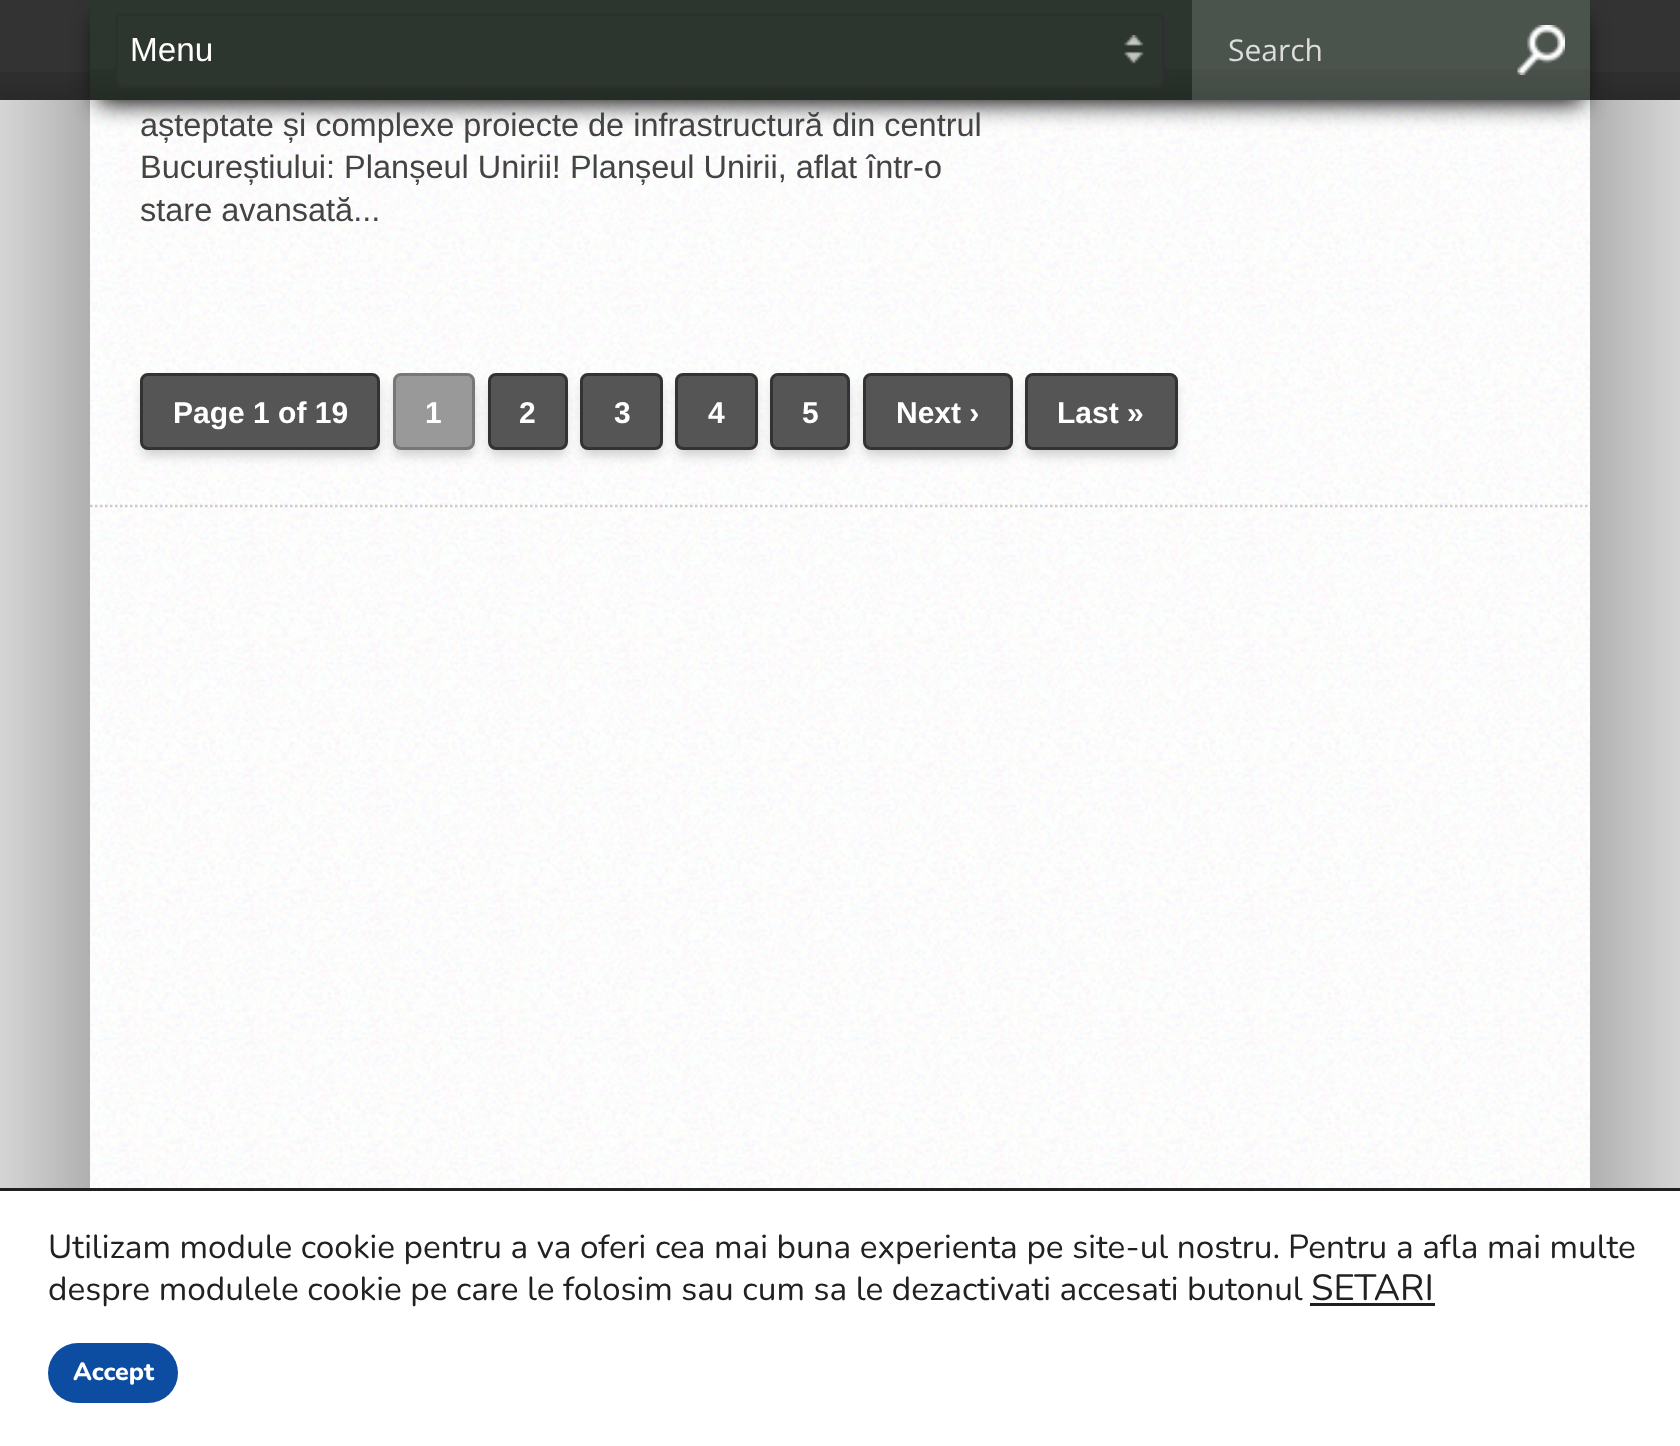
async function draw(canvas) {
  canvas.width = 1680;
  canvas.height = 1446;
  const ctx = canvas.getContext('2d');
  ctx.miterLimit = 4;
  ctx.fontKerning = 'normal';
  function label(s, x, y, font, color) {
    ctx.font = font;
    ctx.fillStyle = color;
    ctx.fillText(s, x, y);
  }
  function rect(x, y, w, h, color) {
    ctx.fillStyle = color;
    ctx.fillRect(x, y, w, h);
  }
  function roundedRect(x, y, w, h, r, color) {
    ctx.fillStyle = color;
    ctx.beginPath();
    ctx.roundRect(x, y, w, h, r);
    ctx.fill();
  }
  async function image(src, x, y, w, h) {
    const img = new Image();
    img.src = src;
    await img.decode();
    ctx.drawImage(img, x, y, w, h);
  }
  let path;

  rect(0, 0, 1680, 1446, '#f9f9f9');
  ctx.fillStyle = '#000';
  ctx.filter = 'blur(187.5px)';
  ctx.beginPath();
  ctx.rect(190, -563, 1300, 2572);
  ctx.fill();
  ctx.filter = 'none';
  rect(0, 0, 1680, 100, '#333');
  await image('assets/img1.png', 0, 72, 1680, 28);
  await image('assets/img5.png', 90, 100, 1500, 1088);
  ctx.fillStyle = '#000';
  ctx.filter = 'blur(12.5px)';
  ctx.beginPath();
  ctx.rect(98, 18, 1485, 85);
  ctx.fill();
  ctx.filter = 'none';
  rect(90, 0, 1500, 100, '#2c362e');
  await image('assets/img2.png', 90, 69, 1500, 31);
  roundedRect(115, 13, 1050, 75, 8, '#2c362e');
  await image('assets/img3.png', 1124, 35, 20, 29);
  ctx.beginPath();
  ctx.roundRect(116.5, 14.5, 1047, 72, 6.5);
  ctx.strokeStyle = '#2d2f31';
  ctx.lineWidth = 3;
  ctx.stroke();
  label('Menu', 130, 61, '33.35px Liberation Sans', '#fff');
  rect(1192, 0, 398, 100, '#ffffff26');
  await image('assets/img4.png', 1517, 25, 48, 50);
  label('Search', 1228, 61, '30px Open Sans', '#ddd');
  label('așteptate și complexe proiecte de infrastructură din centrul', 140, 136, '32.5px Liberation Sans', '#444');
  label('Bucureștiului: Planșeul Unirii! Planșeul Unirii, aflat într-o', 140, 178, '32.5px Liberation Sans', '#444');
  label('stare avansată...', 140, 221, '32.5px Liberation Sans', '#444');
  ctx.fillStyle = '#ccc';
  ctx.filter = 'blur(6px)';
  ctx.beginPath();
  ctx.roundRect(143, 383, 235, 72, 5);
  ctx.fill();
  ctx.filter = 'none';
  ctx.fillStyle = '#555';
  ctx.beginPath();
  ctx.roundRect(141.5, 374.5, 237, 74, 6.5);
  ctx.fill();
  ctx.strokeStyle = '#333';
  ctx.stroke();
  label('Page 1 of 19', 173, 423, 'bold 30px Liberation Sans', '#fff');
  ctx.fillStyle = '#ccc';
  ctx.filter = 'blur(6px)';
  ctx.beginPath();
  ctx.roundRect(395, 383, 78, 72, 5);
  ctx.fill();
  ctx.filter = 'none';
  ctx.fillStyle = '#999';
  ctx.beginPath();
  ctx.roundRect(394.5, 374.5, 79, 74, 6.5);
  ctx.fill();
  ctx.strokeStyle = '#777';
  ctx.stroke();
  label('1', 425, 423, 'bold 30px Liberation Sans', '#fff');
  ctx.fillStyle = '#ccc';
  ctx.filter = 'blur(6px)';
  ctx.beginPath();
  ctx.roundRect(490, 383, 75, 72, 5);
  ctx.fill();
  ctx.filter = 'none';
  ctx.fillStyle = '#555';
  ctx.beginPath();
  ctx.roundRect(489.5, 374.5, 77, 74, 6.5);
  ctx.fill();
  ctx.strokeStyle = '#333';
  ctx.stroke();
  label('2', 519, 423, 'bold 30px Liberation Sans', '#fff');
  ctx.fillStyle = '#ccc';
  ctx.filter = 'blur(6px)';
  ctx.beginPath();
  ctx.roundRect(583, 383, 77, 72, 5);
  ctx.fill();
  ctx.filter = 'none';
  ctx.fillStyle = '#555';
  ctx.beginPath();
  ctx.roundRect(581.5, 374.5, 80, 74, 6.5);
  ctx.fill();
  ctx.stroke();
  label('3', 614, 423, 'bold 30px Liberation Sans', '#fff');
  ctx.fillStyle = '#ccc';
  ctx.filter = 'blur(6px)';
  ctx.beginPath();
  ctx.roundRect(678, 383, 77, 72, 5);
  ctx.fill();
  ctx.filter = 'none';
  ctx.fillStyle = '#555';
  ctx.beginPath();
  ctx.roundRect(676.5, 374.5, 80, 74, 6.5);
  ctx.fill();
  ctx.stroke();
  label('4', 708, 423, 'bold 30px Liberation Sans', '#fff');
  ctx.fillStyle = '#ccc';
  ctx.filter = 'blur(6px)';
  ctx.beginPath();
  ctx.roundRect(773, 383, 75, 72, 5);
  ctx.fill();
  ctx.filter = 'none';
  ctx.fillStyle = '#555';
  ctx.beginPath();
  ctx.roundRect(771.5, 374.5, 77, 74, 6.5);
  ctx.fill();
  ctx.stroke();
  label('5', 802, 423, 'bold 30px Liberation Sans', '#fff');
  ctx.fillStyle = '#ccc';
  ctx.filter = 'blur(6px)';
  ctx.beginPath();
  ctx.roundRect(865, 383, 145, 72, 5);
  ctx.fill();
  ctx.filter = 'none';
  ctx.fillStyle = '#555';
  ctx.beginPath();
  ctx.roundRect(864.5, 374.5, 147, 74, 6.5);
  ctx.fill();
  ctx.stroke();
  label('Next ›', 896, 423, 'bold 30px Liberation Sans', '#fff');
  ctx.fillStyle = '#ccc';
  ctx.filter = 'blur(6px)';
  ctx.beginPath();
  ctx.roundRect(1028, 383, 147, 72, 5);
  ctx.fill();
  ctx.filter = 'none';
  ctx.fillStyle = '#555';
  ctx.beginPath();
  ctx.roundRect(1026.5, 374.5, 150, 74, 6.5);
  ctx.fill();
  ctx.stroke();
  label('Last »', 1057, 423, 'bold 30px Liberation Sans', '#fff');
  path = new Path2D('M90 506H1590');
  ctx.strokeStyle = '#ccc';
  ctx.lineWidth = 2.5;
  ctx.setLineDash([2.5, 2.5]);
  ctx.stroke(path);
  rect(0, 1191, 1680, 255, '#fff');
  rect(0, 1188, 1680, 3, '#202020');
  label('Utilizam module cookie pentru a va oferi cea mai buna experienta pe site-ul nostru.', 48, 1258, '33.35px Nunito', '#212121');
  label('Pentru a afla mai multe', 1288, 1258, '33.35px Nunito', '#212121');
  label('despre modulele cookie pe care le folosim sau cum sa le dezactivati accesati butonul', 48, 1300, '33.35px Nunito', '#212121');
  label('SETARI', 1311, 1300, '36.5px Nunito', '#212121');
  rect(1310, 1303, 125, 3, '#202020');
  roundedRect(48, 1343, 130, 60, 30, '#0c4da2');
  label('Accept', 73, 1380, '800 25px Nunito', '#fff');
}

draw(document.querySelector('canvas'));
